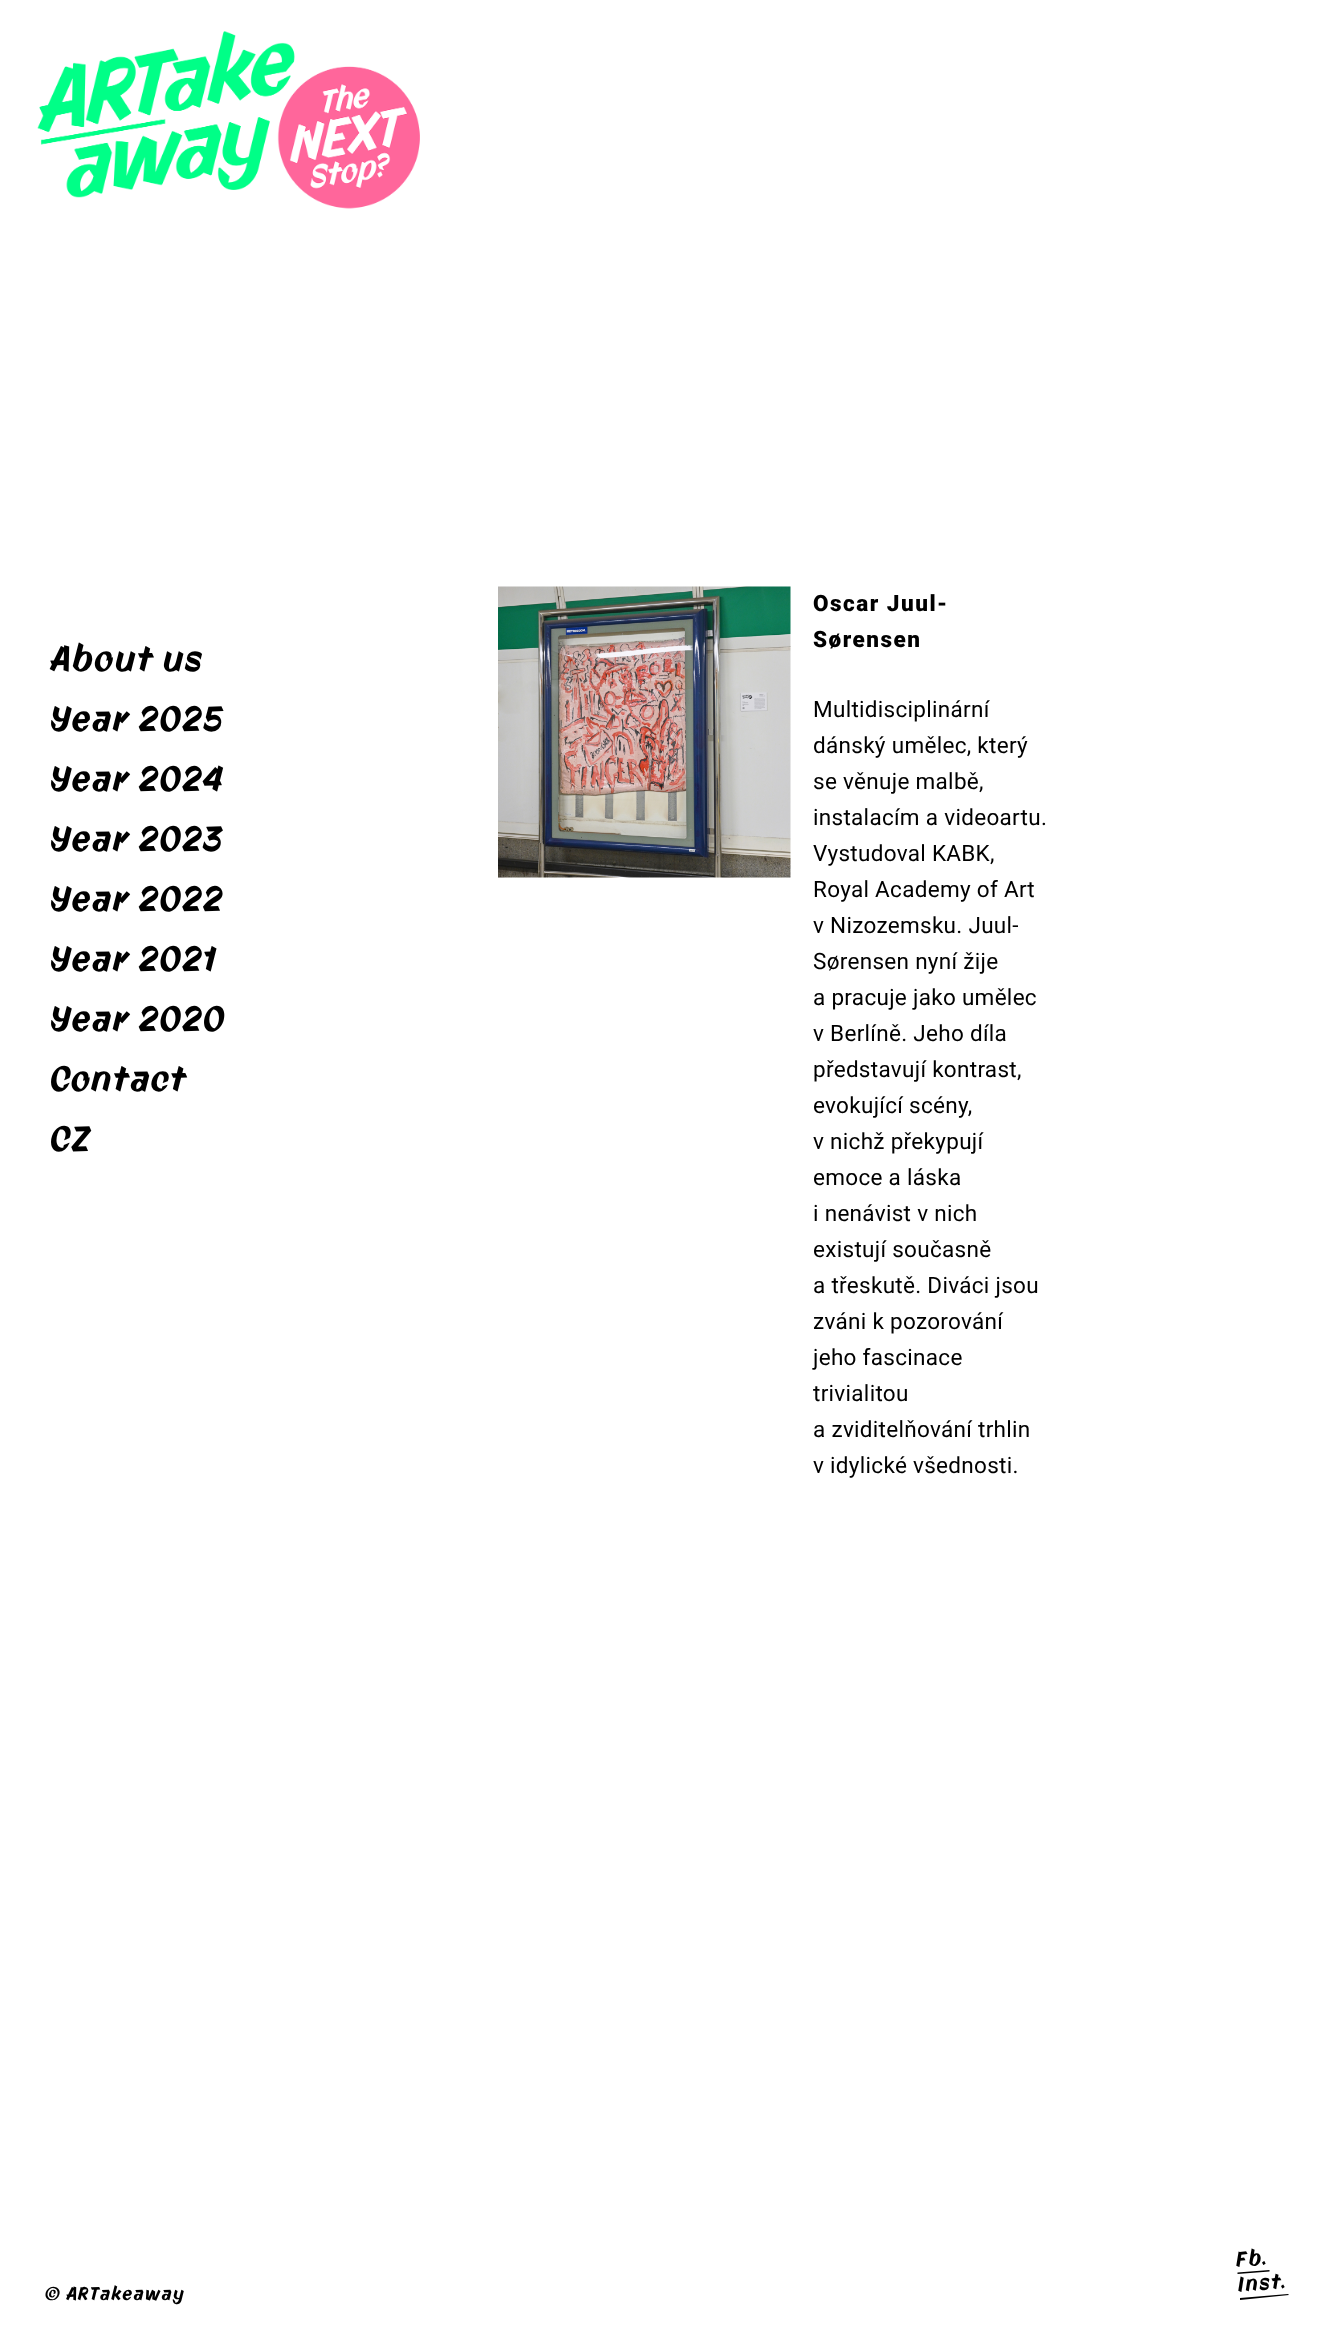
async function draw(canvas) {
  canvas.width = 1319;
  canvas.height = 2343;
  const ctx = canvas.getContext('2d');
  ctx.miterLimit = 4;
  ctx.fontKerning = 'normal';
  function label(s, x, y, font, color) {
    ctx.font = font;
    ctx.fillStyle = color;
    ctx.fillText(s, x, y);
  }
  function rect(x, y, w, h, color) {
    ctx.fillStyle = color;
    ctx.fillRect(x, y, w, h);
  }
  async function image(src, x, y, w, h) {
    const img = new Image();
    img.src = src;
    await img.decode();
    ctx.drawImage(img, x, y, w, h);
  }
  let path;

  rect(0, 0, 1319, 2343, '#fff');
  ctx.letterSpacing = '1.5px';
  label('About us', 51, 671, '34.5px "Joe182"', '#000');
  label('Year 2025', 51, 731, '34.5px "Joe182"', '#000');
  label('Year 2024', 51, 791, '34.5px "Joe182"', '#000');
  label('Year 2023', 51, 851, '34.5px "Joe182"', '#000');
  label('Year 2022', 51, 911, '34.5px "Joe182"', '#000');
  label('Year 2021', 51, 971, '34.5px "Joe182"', '#000');
  label('Year 2020', 51, 1031, '34.5px "Joe182"', '#000');
  label('Contact', 51, 1091, '34.5px "Joe182"', '#000');
  label('CZ', 51, 1151, '34.5px "Joe182"', '#000');
  label('© ARTakeaway', 45, 2300, '18px "Joe182"', '#000');
  await image('assets/img1.png', 498, 586, 293, 292);
  label('Oscar Juul-', 813, 611, '900 22.5px Roboto', '#000');
  label('Sørensen', 813, 647, '900 22.5px Roboto', '#000');
  ctx.letterSpacing = '0.3px';
  label('Multidisciplinární', 813, 717, '22.5px Roboto', '#000');
  label('dánský umělec, který', 813, 753, '22.5px Roboto', '#000');
  label('se věnuje malbě,', 813, 789, '22.5px Roboto', '#000');
  label('instalacím a videoartu.', 813, 825, '22.5px Roboto', '#000');
  label('Vystudoval KABK,', 813, 861, '22.5px Roboto', '#000');
  label('Royal Academy of Art', 813, 897, '22.5px Roboto', '#000');
  label('v Nizozemsku. Juul-', 813, 933, '22.5px Roboto', '#000');
  label('Sørensen nyní žije', 813, 969, '22.5px Roboto', '#000');
  label('a pracuje jako umělec', 813, 1005, '22.5px Roboto', '#000');
  label('v Berlíně. Jeho díla', 813, 1041, '22.5px Roboto', '#000');
  label('představují kontrast,', 813, 1077, '22.5px Roboto', '#000');
  label('evokující scény,', 813, 1113, '22.5px Roboto', '#000');
  label('v nichž překypují', 813, 1149, '22.5px Roboto', '#000');
  label('emoce a láska', 813, 1185, '22.5px Roboto', '#000');
  label('i nenávist v nich', 813, 1221, '22.5px Roboto', '#000');
  label('existují současně', 813, 1257, '22.5px Roboto', '#000');
  label('a třeskutě. Diváci jsou', 813, 1293, '22.5px Roboto', '#000');
  label('zváni k pozorování', 813, 1329, '22.5px Roboto', '#000');
  label('jeho fascinace', 813, 1365, '22.5px Roboto', '#000');
  label('trivialitou', 813, 1401, '22.5px Roboto', '#000');
  label('a zviditelňování trhlin', 813, 1437, '22.5px Roboto', '#000');
  label('v idylické všednosti.', 813, 1473, '22.5px Roboto', '#000');
  await image('assets/img2.png', 37, 31, 383, 178);
  ctx.letterSpacing = '1.5px';
  ctx.font = '21px "Joe182"';
  ctx.save();
  ctx.translate(1237, 2267);
  ctx.rotate(-5 * Math.PI / 180);
  ctx.fillText('Fb.', 0, 0);
  ctx.restore();
  path = new Path2D('M1237.5 2272.5L1269.5 2270V2271.5L1237.5 2274Z');
  ctx.fill(path);
  ctx.save();
  ctx.translate(1239, 2292);
  ctx.rotate(-5 * Math.PI / 180);
  ctx.fillText('Inst.', 0, 0);
  ctx.restore();
  path = new Path2D('M1240 2298L1288 2294L1289 2295L1240 2300Z');
  ctx.fill(path);
}

draw(document.querySelector('canvas'));
